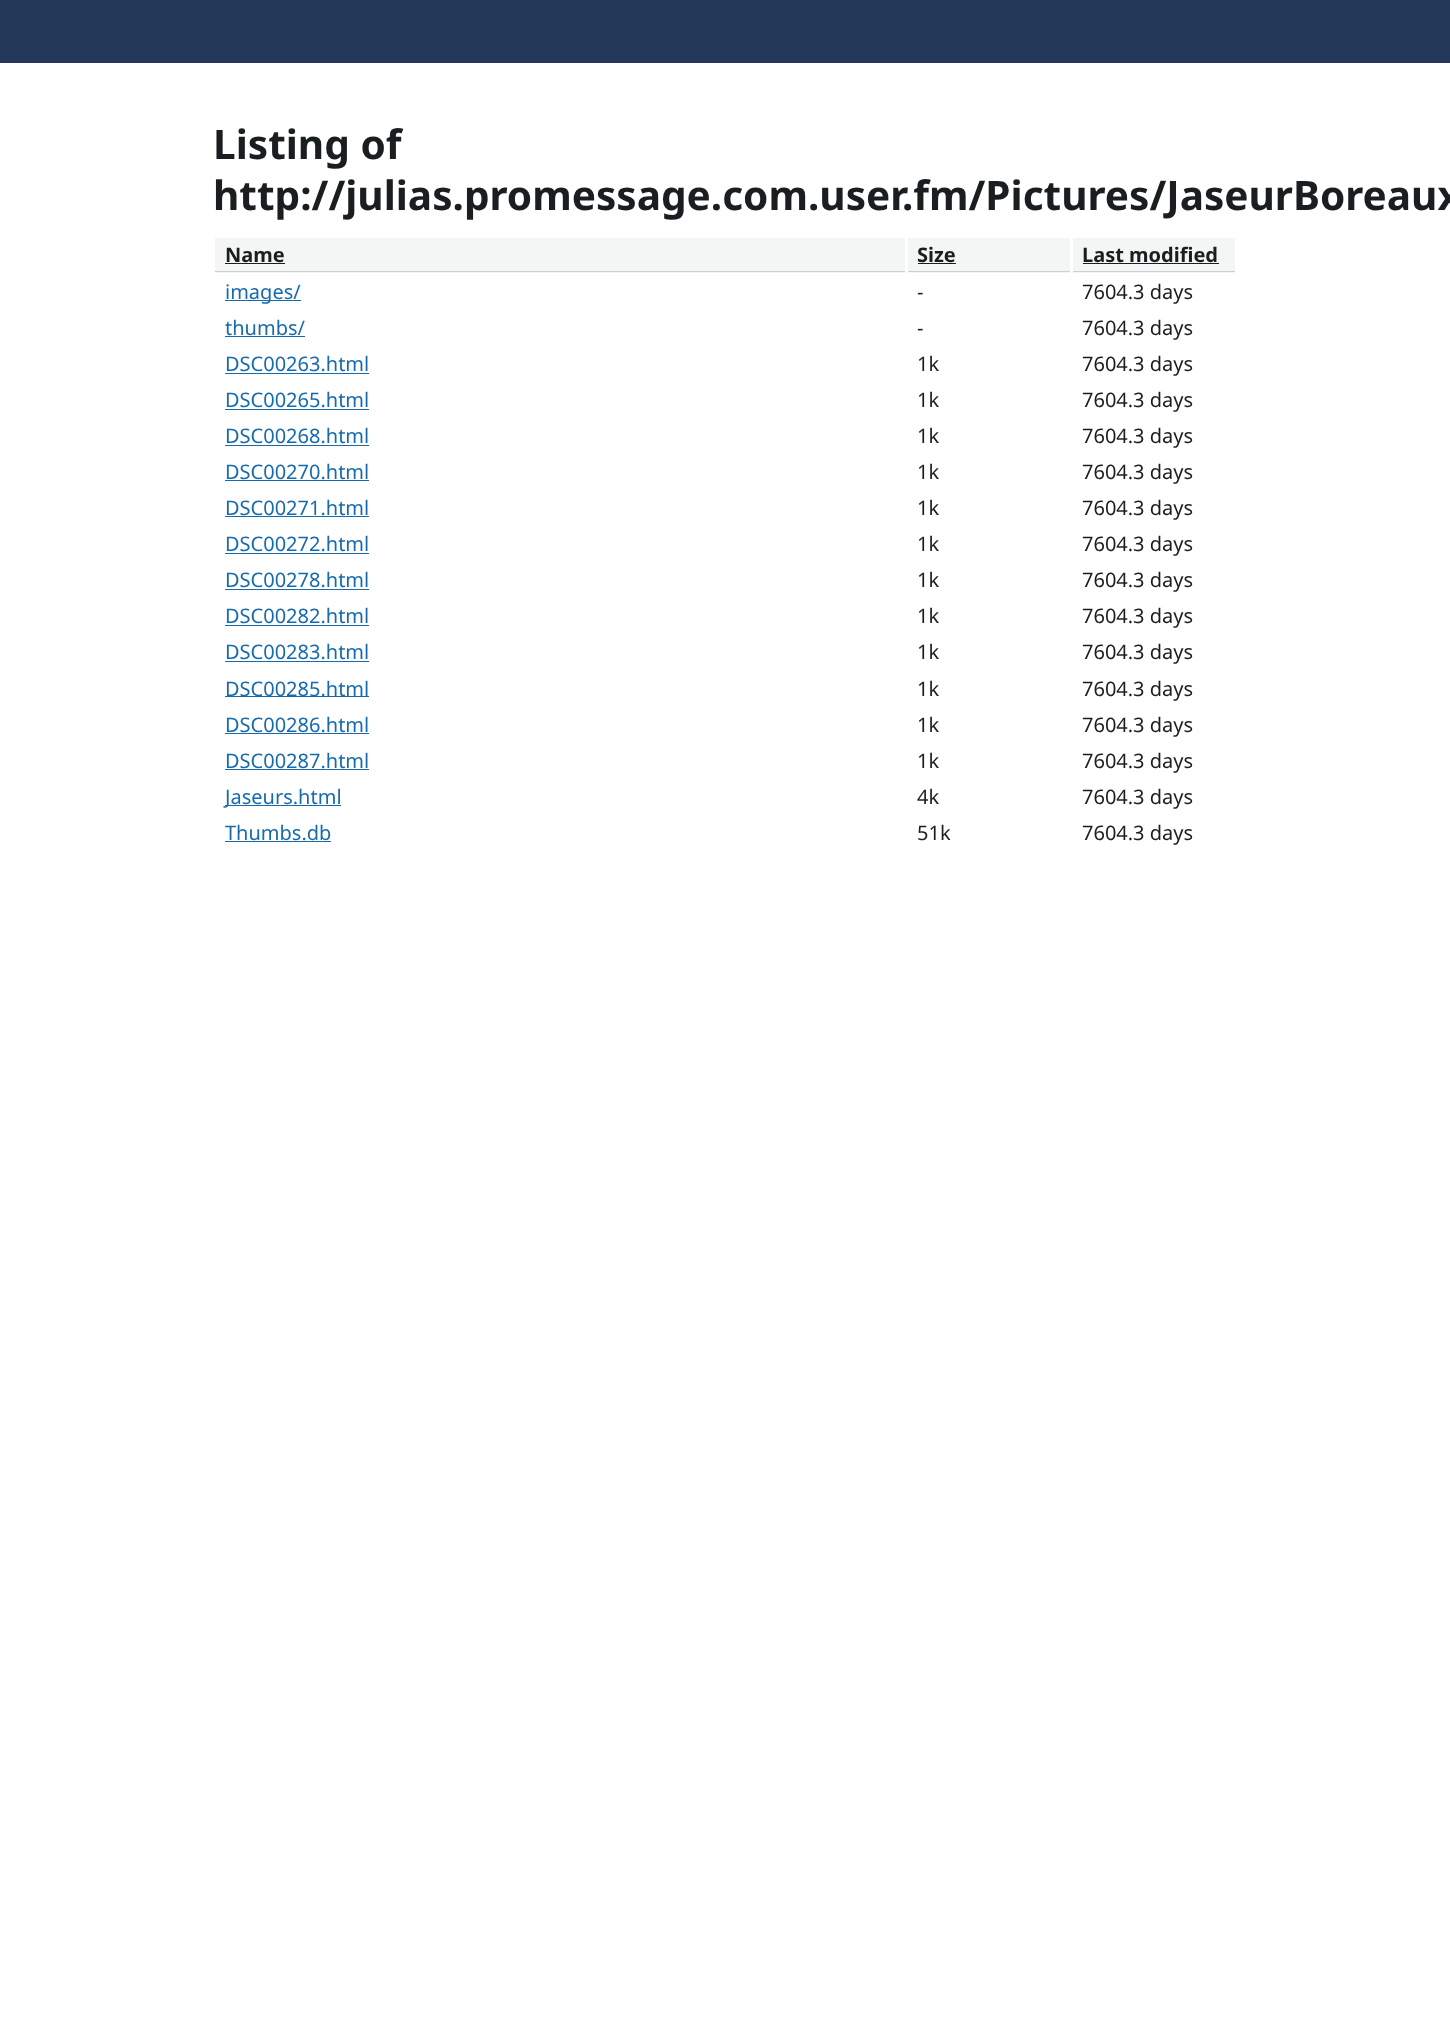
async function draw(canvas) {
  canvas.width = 1450;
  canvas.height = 2026;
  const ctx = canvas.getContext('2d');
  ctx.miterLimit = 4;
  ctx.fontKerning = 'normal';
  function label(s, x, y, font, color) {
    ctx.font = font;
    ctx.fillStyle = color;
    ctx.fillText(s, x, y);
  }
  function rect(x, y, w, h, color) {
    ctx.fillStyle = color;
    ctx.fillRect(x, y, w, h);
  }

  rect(0, 0, 1450, 2026, '#fff');
  rect(0, 0, 1450, 63, '#243959');
  label('Listing of', 213, 159, 'bold 40.55px Noto Sans', '#1b1e20');
  label('http://julias.promessage.com.user.fm/Pictures/JaseurBoreaux', 213, 210, 'bold 40.55px Noto Sans', '#1b1e20');
  rect(215, 238, 690, 35, '#f4f5f5');
  rect(215, 271, 690, 1, '#ccced1');
  label('Name', 225, 262, 'bold 20px Noto Sans', '#1b1e20');
  rect(225, 263, 60, 1, '#1b1e20');
  rect(908, 238, 162, 35, '#f4f5f5');
  rect(908, 271, 162, 1, '#ccced1');
  label('Size', 917, 262, 'bold 20px Noto Sans', '#1b1e20');
  rect(918, 263, 38, 1, '#1b1e20');
  rect(1073, 238, 162, 35, '#f4f5f5');
  rect(1073, 271, 162, 1, '#ccced1');
  label('Last modified', 1082, 262, 'bold 20px Noto Sans', '#1b1e20');
  rect(1083, 263, 136, 1, '#1b1e20');
  rect(225, 300, 76, 1, '#176bad');
  label('images/', 225, 299, '20px Noto Sans', '#176bad');
  label('-', 917, 299, '20px Noto Sans', '#1b1e20');
  label('7604.3 days', 1082, 299, '20px Noto Sans', '#1b1e20');
  label('thumbs/', 225, 335, '20px Noto Sans', '#176bad');
  rect(225, 336, 80, 1, '#176bad');
  label('-', 917, 335, '20px Noto Sans', '#1b1e20');
  label('7604.3 days', 1082, 335, '20px Noto Sans', '#1b1e20');
  label('DSC00263.html', 225, 371, '20px Noto Sans', '#176bad');
  rect(225, 373, 144, 1, '#176bad');
  label('1k', 917, 371, '20px Noto Sans', '#1b1e20');
  label('7604.3 days', 1082, 371, '20px Noto Sans', '#1b1e20');
  label('DSC00265.html', 225, 407, '20px Noto Sans', '#176bad');
  rect(225, 409, 144, 1, '#176bad');
  label('1k', 917, 407, '20px Noto Sans', '#1b1e20');
  label('7604.3 days', 1082, 407, '20px Noto Sans', '#1b1e20');
  label('DSC00268.html', 225, 443, '20px Noto Sans', '#176bad');
  rect(225, 445, 144, 1, '#176bad');
  label('1k', 917, 443, '20px Noto Sans', '#1b1e20');
  label('7604.3 days', 1082, 443, '20px Noto Sans', '#1b1e20');
  label('DSC00270.html', 225, 479, '20px Noto Sans', '#176bad');
  rect(225, 480, 144, 1, '#176bad');
  label('1k', 917, 479, '20px Noto Sans', '#1b1e20');
  label('7604.3 days', 1082, 479, '20px Noto Sans', '#1b1e20');
  label('DSC00271.html', 225, 515, '20px Noto Sans', '#176bad');
  rect(225, 516, 144, 1, '#176bad');
  label('1k', 917, 515, '20px Noto Sans', '#1b1e20');
  label('7604.3 days', 1082, 515, '20px Noto Sans', '#1b1e20');
  label('DSC00272.html', 225, 551, '20px Noto Sans', '#176bad');
  rect(225, 553, 144, 1, '#176bad');
  label('1k', 917, 551, '20px Noto Sans', '#1b1e20');
  label('7604.3 days', 1082, 551, '20px Noto Sans', '#1b1e20');
  label('DSC00278.html', 225, 587, '20px Noto Sans', '#176bad');
  rect(225, 589, 144, 1, '#176bad');
  label('1k', 917, 587, '20px Noto Sans', '#1b1e20');
  label('7604.3 days', 1082, 587, '20px Noto Sans', '#1b1e20');
  label('DSC00282.html', 225, 623, '20px Noto Sans', '#176bad');
  rect(225, 625, 144, 1, '#176bad');
  label('1k', 917, 623, '20px Noto Sans', '#1b1e20');
  label('7604.3 days', 1082, 623, '20px Noto Sans', '#1b1e20');
  label('DSC00283.html', 225, 659, '20px Noto Sans', '#176bad');
  rect(225, 661, 144, 1, '#176bad');
  label('1k', 917, 659, '20px Noto Sans', '#1b1e20');
  label('7604.3 days', 1082, 659, '20px Noto Sans', '#1b1e20');
  rect(225, 696, 144, 1, '#176bad');
  label('DSC00285.html', 225, 696, '20px Noto Sans', '#176bad');
  label('1k', 917, 696, '20px Noto Sans', '#1b1e20');
  label('7604.3 days', 1082, 696, '20px Noto Sans', '#1b1e20');
  label('DSC00286.html', 225, 732, '20px Noto Sans', '#176bad');
  rect(225, 733, 144, 1, '#176bad');
  label('1k', 917, 732, '20px Noto Sans', '#1b1e20');
  label('7604.3 days', 1082, 732, '20px Noto Sans', '#1b1e20');
  label('DSC00287.html', 225, 768, '20px Noto Sans', '#176bad');
  rect(225, 769, 144, 1, '#176bad');
  label('1k', 917, 768, '20px Noto Sans', '#1b1e20');
  label('7604.3 days', 1082, 768, '20px Noto Sans', '#1b1e20');
  rect(225, 805, 116, 1, '#176bad');
  label('Jaseurs.html', 225, 804, '20px Noto Sans', '#176bad');
  label('4k', 917, 804, '20px Noto Sans', '#1b1e20');
  label('7604.3 days', 1082, 804, '20px Noto Sans', '#1b1e20');
  label('Thumbs.db', 225, 840, '20px Noto Sans', '#176bad');
  rect(225, 841, 106, 1, '#176bad');
  label('51k', 917, 840, '20px Noto Sans', '#1b1e20');
  label('7604.3 days', 1082, 840, '20px Noto Sans', '#1b1e20');
}

draw(document.querySelector('canvas'));
